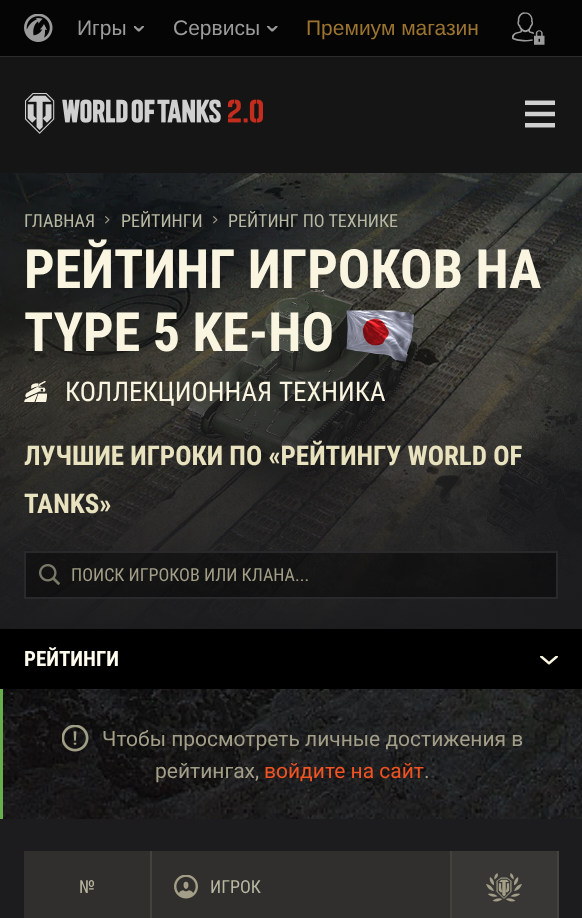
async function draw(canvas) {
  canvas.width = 582;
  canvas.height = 918;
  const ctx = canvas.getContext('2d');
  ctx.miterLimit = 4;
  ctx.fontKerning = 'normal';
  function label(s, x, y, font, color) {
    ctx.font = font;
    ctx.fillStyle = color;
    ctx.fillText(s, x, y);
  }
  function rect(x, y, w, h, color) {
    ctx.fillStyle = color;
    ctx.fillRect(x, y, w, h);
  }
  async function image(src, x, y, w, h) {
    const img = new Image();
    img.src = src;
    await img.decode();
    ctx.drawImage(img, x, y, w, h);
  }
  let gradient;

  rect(0, 0, 582, 918, '#1c1c1e');
  rect(0, 56, 582, 117, '#151515');
  ctx.strokeStyle = '#ffffff1a';
  ctx.lineWidth = 2;
  ctx.strokeRect(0, 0, 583, 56);
  rect(0, 0, 582, 56, '#050505');
  await image('assets/img1.png', 24, 14, 29, 28);
  label('Игры', 77, 35, '21px Liberation Sans', '#9b9b9b');
  await image('assets/img2.png', 134, 26, 10, 6);
  label('Сервисы', 173, 35, '21px Liberation Sans', '#9b9b9b');
  await image('assets/img3.png', 267, 26, 11, 6);
  label('Премиум магазин', 306, 35, '21px Liberation Sans', '#9b7430');
  await image('assets/img4.png', 512, 12, 33, 33);
  await image('assets/img5.png', 25, 93, 238, 41);
  await image('assets/img6.png', 525, 100, 30, 28);
  await image('assets/img7.png', 0, 173, 582, 456);
  await image('assets/img8.png', 148, 289, 309, 265);
  gradient = ctx.createLinearGradient(291, 55, 291, 656);
  gradient.addColorStop(0.07, '#1c1c1e00');
  gradient.addColorStop(0.74, '#1c1c1ecf');
  gradient.addColorStop(1, '#1c1c1e');
  ctx.fillStyle = gradient;
  ctx.fillRect(0, 173, 582, 456);
  label('ГЛАВНАЯ', 24, 227, '18px Roboto Condensed', '#b8b8a2');
  await image('assets/img9.png', 105, 216, 5, 8);
  label('РЕЙТИНГИ', 121, 227, '18px Roboto Condensed', '#b8b8a2');
  await image('assets/img10.png', 213, 216, 5, 8);
  label('РЕЙТИНГ ПО ТЕХНИКЕ', 228, 227, '18px Roboto Condensed', '#b8b8a2');
  label('РЕЙТИНГ ИГРОКОВ НА', 24, 288, 'bold 54px Roboto Condensed', '#f9f5e1');
  label('TYPE 5 KE-HO', 24, 351, 'bold 54px Roboto Condensed', '#f9f5e1');
  await image('assets/img11.png', 346, 310, 68, 52);
  await image('assets/img12.png', 24, 381, 23, 21);
  ctx.wordSpacing = '1px';
  label('КОЛЛЕКЦИОННАЯ ТЕХНИКА', 65, 401, '27px Roboto Condensed', '#f9f5e1');
  ctx.wordSpacing = '0px';
  label('ЛУЧШИЕ ИГРОКИ ПО «РЕЙТИНГУ WORLD OF', 24, 465, 'bold 27px Roboto Condensed', '#e9e2bf');
  label('TANKS»', 24, 513, 'bold 27px Roboto Condensed', '#e9e2bf');
  rect(26, 553, 530, 44, '#00000066');
  await image('assets/img13.png', 39, 564, 21, 21);
  ctx.strokeStyle = '#29292b';
  ctx.strokeRect(25, 552, 532, 46);
  label('ПОИСК ИГРОКОВ ИЛИ КЛАНА...', 71, 581, '18px Roboto Condensed', '#a29e87');
  rect(0, 629, 582, 60, '#000');
  label('РЕЙТИНГИ', 24, 666, 'bold 21px Roboto Condensed', '#fffbed');
  await image('assets/img14.png', 540, 656, 18, 9);
  await image('assets/img15.png', 3, 689, 579, 130);
  rect(0, 689, 3, 130, '#66af4c');
  await image('assets/img16.png', 62, 725, 27, 27);
  label('Чтобы просмотреть личные достижения в', 102, 746, '21px Roboto', '#a29e87');
  label('рейтингах,', 155, 778, '21px Roboto', '#a29e87');
  label('войдите на сайт', 264, 778, '21px Roboto', '#f25322');
  label('.', 424, 778, '21px Roboto', '#a29e87');
  rect(24, 851, 426, 67, '#302f2d');
  rect(150, 851, 2, 67, '#43423c');
  label('№', 79, 893, '18px Roboto Condensed', '#b8b8a2');
  rect(450, 851, 2, 67, '#43423c');
  await image('assets/img17.png', 174, 875, 24, 24);
  label('ИГРОК', 210, 893, '18px Roboto Condensed', '#b8b8a2');
  rect(452, 851, 105, 67, '#393735');
  rect(557, 851, 2, 67, '#43423c');
  await image('assets/img18.png', 486, 873, 36, 29);
}

draw(document.querySelector('canvas'));
